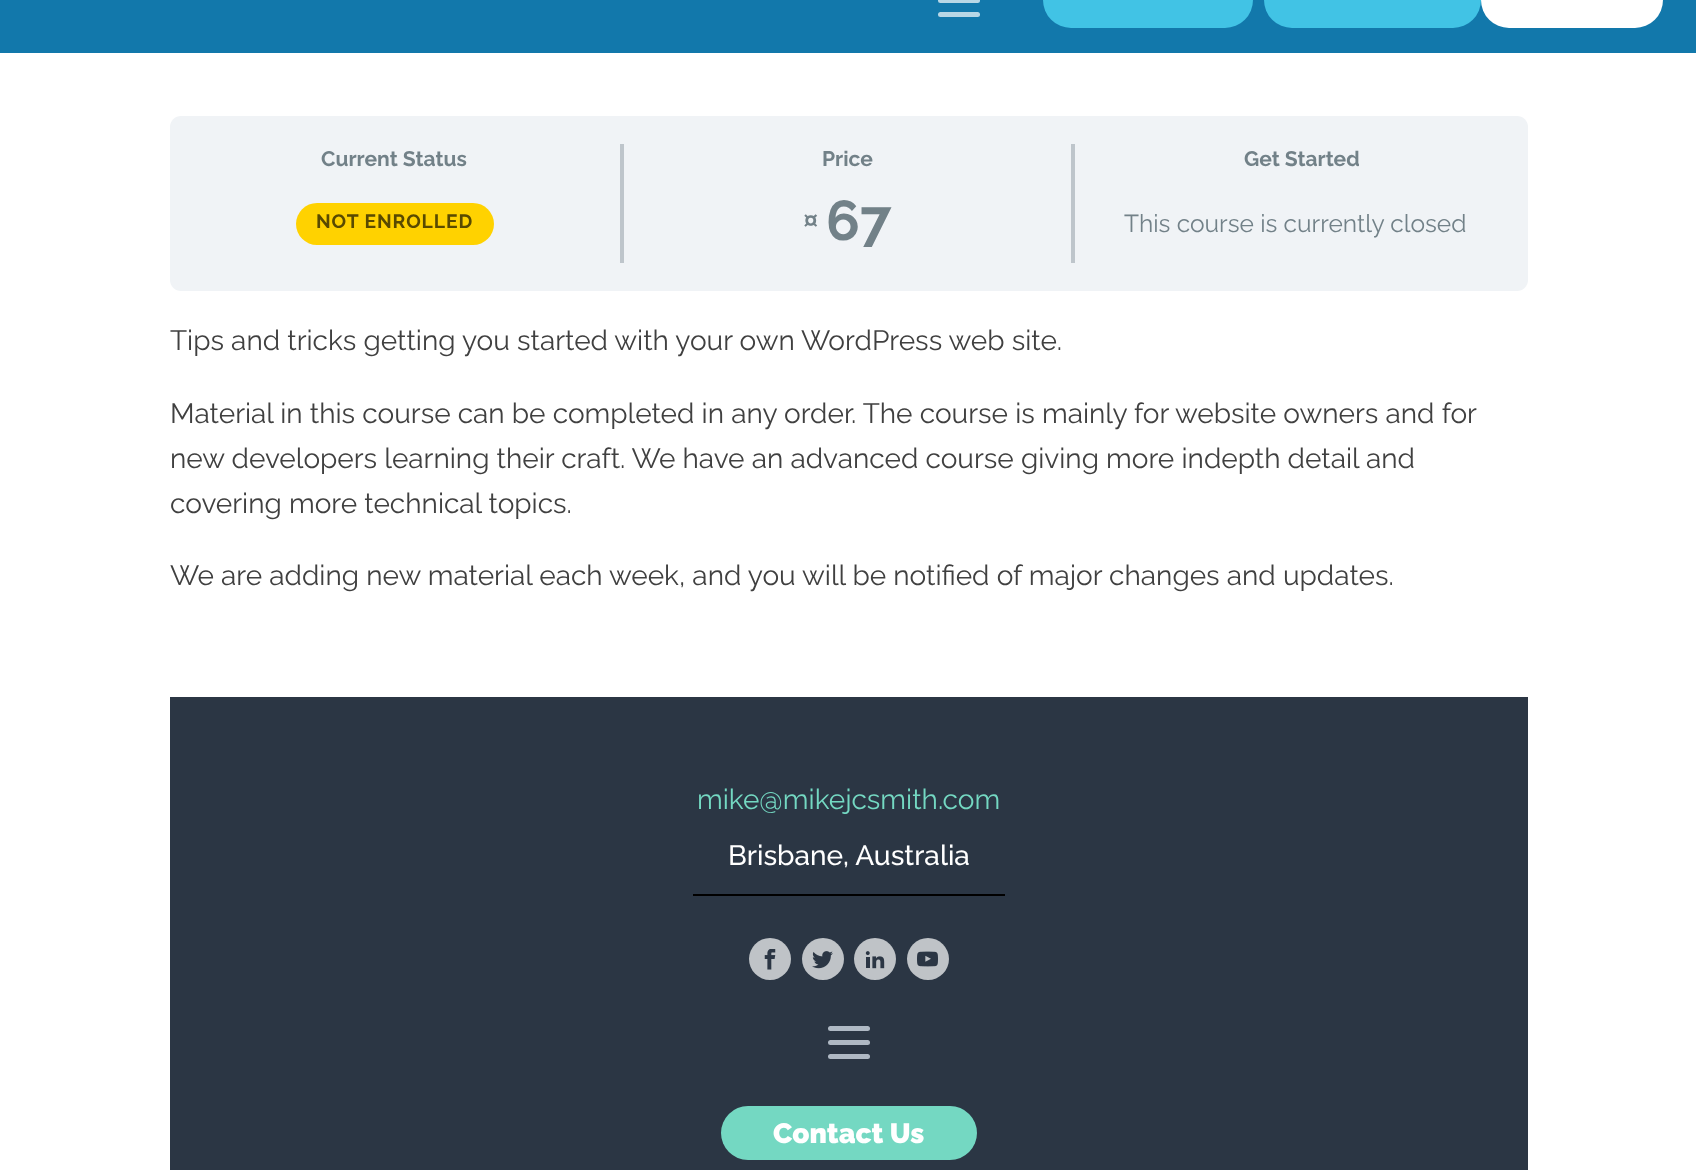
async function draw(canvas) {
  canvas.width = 1696;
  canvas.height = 1170;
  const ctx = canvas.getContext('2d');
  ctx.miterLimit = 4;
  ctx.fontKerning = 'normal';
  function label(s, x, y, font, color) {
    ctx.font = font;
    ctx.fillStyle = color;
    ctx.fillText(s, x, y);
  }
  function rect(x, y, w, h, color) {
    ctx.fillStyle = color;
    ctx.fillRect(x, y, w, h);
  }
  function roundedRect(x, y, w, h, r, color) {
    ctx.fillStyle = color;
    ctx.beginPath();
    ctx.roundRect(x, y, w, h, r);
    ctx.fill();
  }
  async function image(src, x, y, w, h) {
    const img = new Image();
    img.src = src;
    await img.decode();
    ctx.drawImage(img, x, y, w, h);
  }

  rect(0, 0, 1696, 1170, '#fff');
  rect(0, 0, 1696, 53, '#1278ab');
  roundedRect(938, -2, 42, 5, 2.5, '#b8d7e6');
  roundedRect(938, 12, 42, 5, 2.5, '#b8d7e6');
  roundedRect(1043, -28, 210, 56, 28, '#41c3e5');
  roundedRect(1264, -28, 217, 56, 28, '#41c3e5');
  roundedRect(1481, -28, 182, 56, 28, '#fff');
  roundedRect(170, 116, 1358, 175, 11, '#f0f3f6');
  rect(620, 144, 4, 119, '#bec5cb');
  label('Current Status', 321, 166, 'bold 21px Raleway', '#728188');
  roundedRect(296, 203, 198, 42, 21, '#ffd200');
  ctx.letterSpacing = '0.9px';
  label('NOT ENROLLED', 316, 228, 'bold 19.25px Raleway', '#594a00');
  rect(1071, 144, 4, 119, '#bec5cb');
  ctx.letterSpacing = '0px';
  label('Price', 822, 166, 'bold 21px Raleway', '#728188');
  label('¤', 803, 230, 'bold 28px Raleway', '#728188');
  label('67', 826, 240, 'bold 56px Raleway', '#728188');
  label('Get Started', 1244, 166, 'bold 21px Raleway', '#728188');
  label('This course is currently closed', 1124, 232, '24.5px Raleway', '#728188');
  label('Tips and tricks getting you started with your own WordPress web site.', 170, 350, '28px Raleway', '#404040');
  label('Material in this course can be completed in any order. The course is mainly for website owners and for', 170, 423, '28px Raleway', '#404040');
  label('new developers learning their craft. We have an advanced course giving more indepth detail and', 170, 468, '28px Raleway', '#404040');
  label('covering more technical topics.', 170, 513, '28px Raleway', '#404040');
  label('We are adding new material each week, and you will be notified of major changes and updates.', 170, 585, '28px Raleway', '#404040');
  rect(170, 697, 1358, 473, '#2b3644');
  label('mike@mikejcsmith.com', 697, 809, '28px Raleway', '#74d8c2');
  rect(693, 894, 312, 2, '#000');
  label('Brisbane, Australia', 728, 865, '500 28px Raleway', '#fff');
  ctx.fillStyle = '#bfc3c7';
  ctx.beginPath();
  ctx.arc(770, 959, 21, 0, 2 * Math.PI);
  ctx.fill();
  await image('assets/img1.png', 764, 949, 12, 21);
  ctx.beginPath();
  ctx.arc(823, 959, 21, 0, 2 * Math.PI);
  ctx.fill();
  await image('assets/img2.png', 812, 951, 21, 18);
  ctx.beginPath();
  ctx.arc(875, 959, 21, 0, 2 * Math.PI);
  ctx.fill();
  await image('assets/img3.png', 865, 951, 20, 18);
  ctx.beginPath();
  ctx.arc(928, 959, 21, 0, 2 * Math.PI);
  ctx.fill();
  await image('assets/img4.png', 917, 951, 21, 16);
  roundedRect(828, 1026, 42, 5, 2.5, '#afb9c4');
  roundedRect(828, 1040, 42, 5, 2.5, '#afb9c4');
  roundedRect(828, 1054, 42, 5, 2.5, '#afb9c4');
  roundedRect(721, 1106, 256, 54, 27, '#74d8c2');
  label('Contact Us', 773, 1143, '900 28px Raleway', '#fff');
}

draw(document.querySelector('canvas'));
